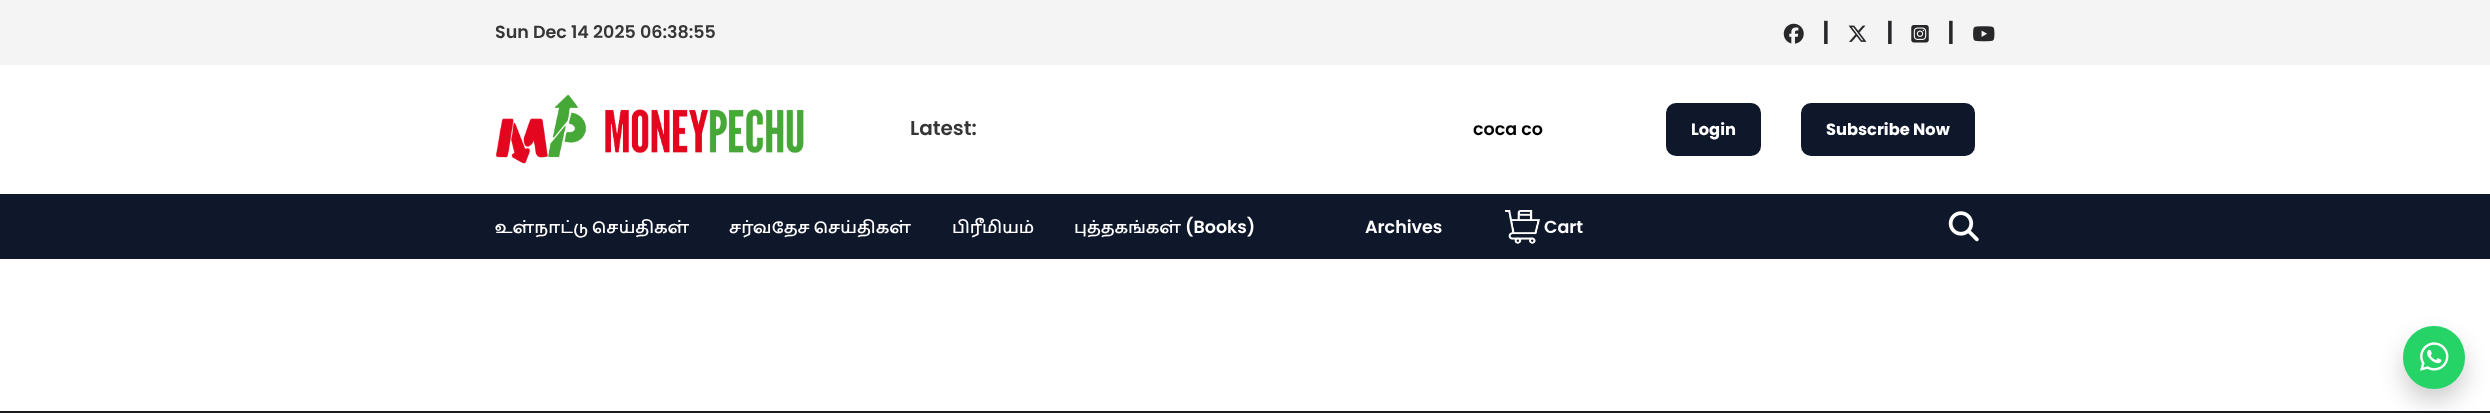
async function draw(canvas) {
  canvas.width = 2490;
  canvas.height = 413;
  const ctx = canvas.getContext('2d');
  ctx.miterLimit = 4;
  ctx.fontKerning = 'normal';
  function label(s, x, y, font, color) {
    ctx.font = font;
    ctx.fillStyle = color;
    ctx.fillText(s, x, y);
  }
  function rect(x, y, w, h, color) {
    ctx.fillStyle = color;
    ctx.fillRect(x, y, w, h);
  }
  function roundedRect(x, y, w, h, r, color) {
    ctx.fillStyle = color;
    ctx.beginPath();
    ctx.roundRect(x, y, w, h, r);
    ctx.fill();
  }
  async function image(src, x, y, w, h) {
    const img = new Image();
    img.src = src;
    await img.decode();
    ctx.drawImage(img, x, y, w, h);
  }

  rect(0, 0, 2490, 413, '#fff');
  rect(0, 194, 2490, 65, '#0f172a');
  rect(0, 0, 2490, 65, '#f4f4f5');
  label('Sun Dec 14 2025 06:38:55', 495, 38, '600 17.5px Poppins', '#363636');
  await image('assets/img1.png', 1783, 23, 21, 21);
  label('|', 1822, 41, '600 25px Poppins', '#27272a');
  await image('assets/img2.png', 1848, 25, 19, 17);
  label('|', 1886, 41, '600 25px Poppins', '#27272a');
  await image('assets/img3.png', 1911, 25, 18, 18);
  label('|', 1947, 41, '600 25px Poppins', '#27272a');
  await image('assets/img4.png', 1973, 26, 22, 16);
  await image('assets/img5.png', 495, 94, 309, 70);
  label('Latest:', 910, 135, '600 20px Poppins', '#363636');
  label('coca co', 1473, 135, '600 17.5px Poppins', '#000');
  roundedRect(1666, 103, 95, 53, 10, '#0f172a');
  label('Login', 1691, 135, 'bold 16.25px Poppins', '#fff');
  roundedRect(1801, 103, 174, 53, 10, '#0f172a');
  label('Subscribe Now', 1826, 135, 'bold 16.25px Poppins', '#fff');
  label('உள்நாட்டு செய்திகள்', 495, 233, '600 17.5px Catamaran', '#fff');
  label('சர்வதேச செய்திகள்', 729, 233, '600 17.5px Catamaran', '#fff');
  label('பிரீமியம்', 952, 233, '600 17.5px Catamaran', '#fff');
  label('புத்தகங்கள்', 1074, 233, '600 17.5px Catamaran', '#fff');
  label('(Books)', 1185, 233, '600 17.5px Poppins', '#fff');
  label('Archives', 1365, 233, '600 17.5px Poppins', '#fff');
  await image('assets/img6.png', 1505, 210, 35, 34);
  label('Cart', 1544, 233, '600 17.5px Poppins', '#fff');
  await image('assets/img7.png', 1948, 211, 31, 31);
  rect(0, 411, 2490, 2, '#1a1a1d');
  ctx.fillStyle = '#00000033';
  ctx.filter = 'blur(12.5px)';
  ctx.beginPath();
  ctx.roundRect(2403, 339, 62, 62, 31);
  ctx.fill();
  ctx.filter = 'none';
  roundedRect(2403, 326, 62, 63, 31, '#25d366');
  await image('assets/img8.png', 2420, 342, 29, 29);
}

draw(document.querySelector('canvas'));
